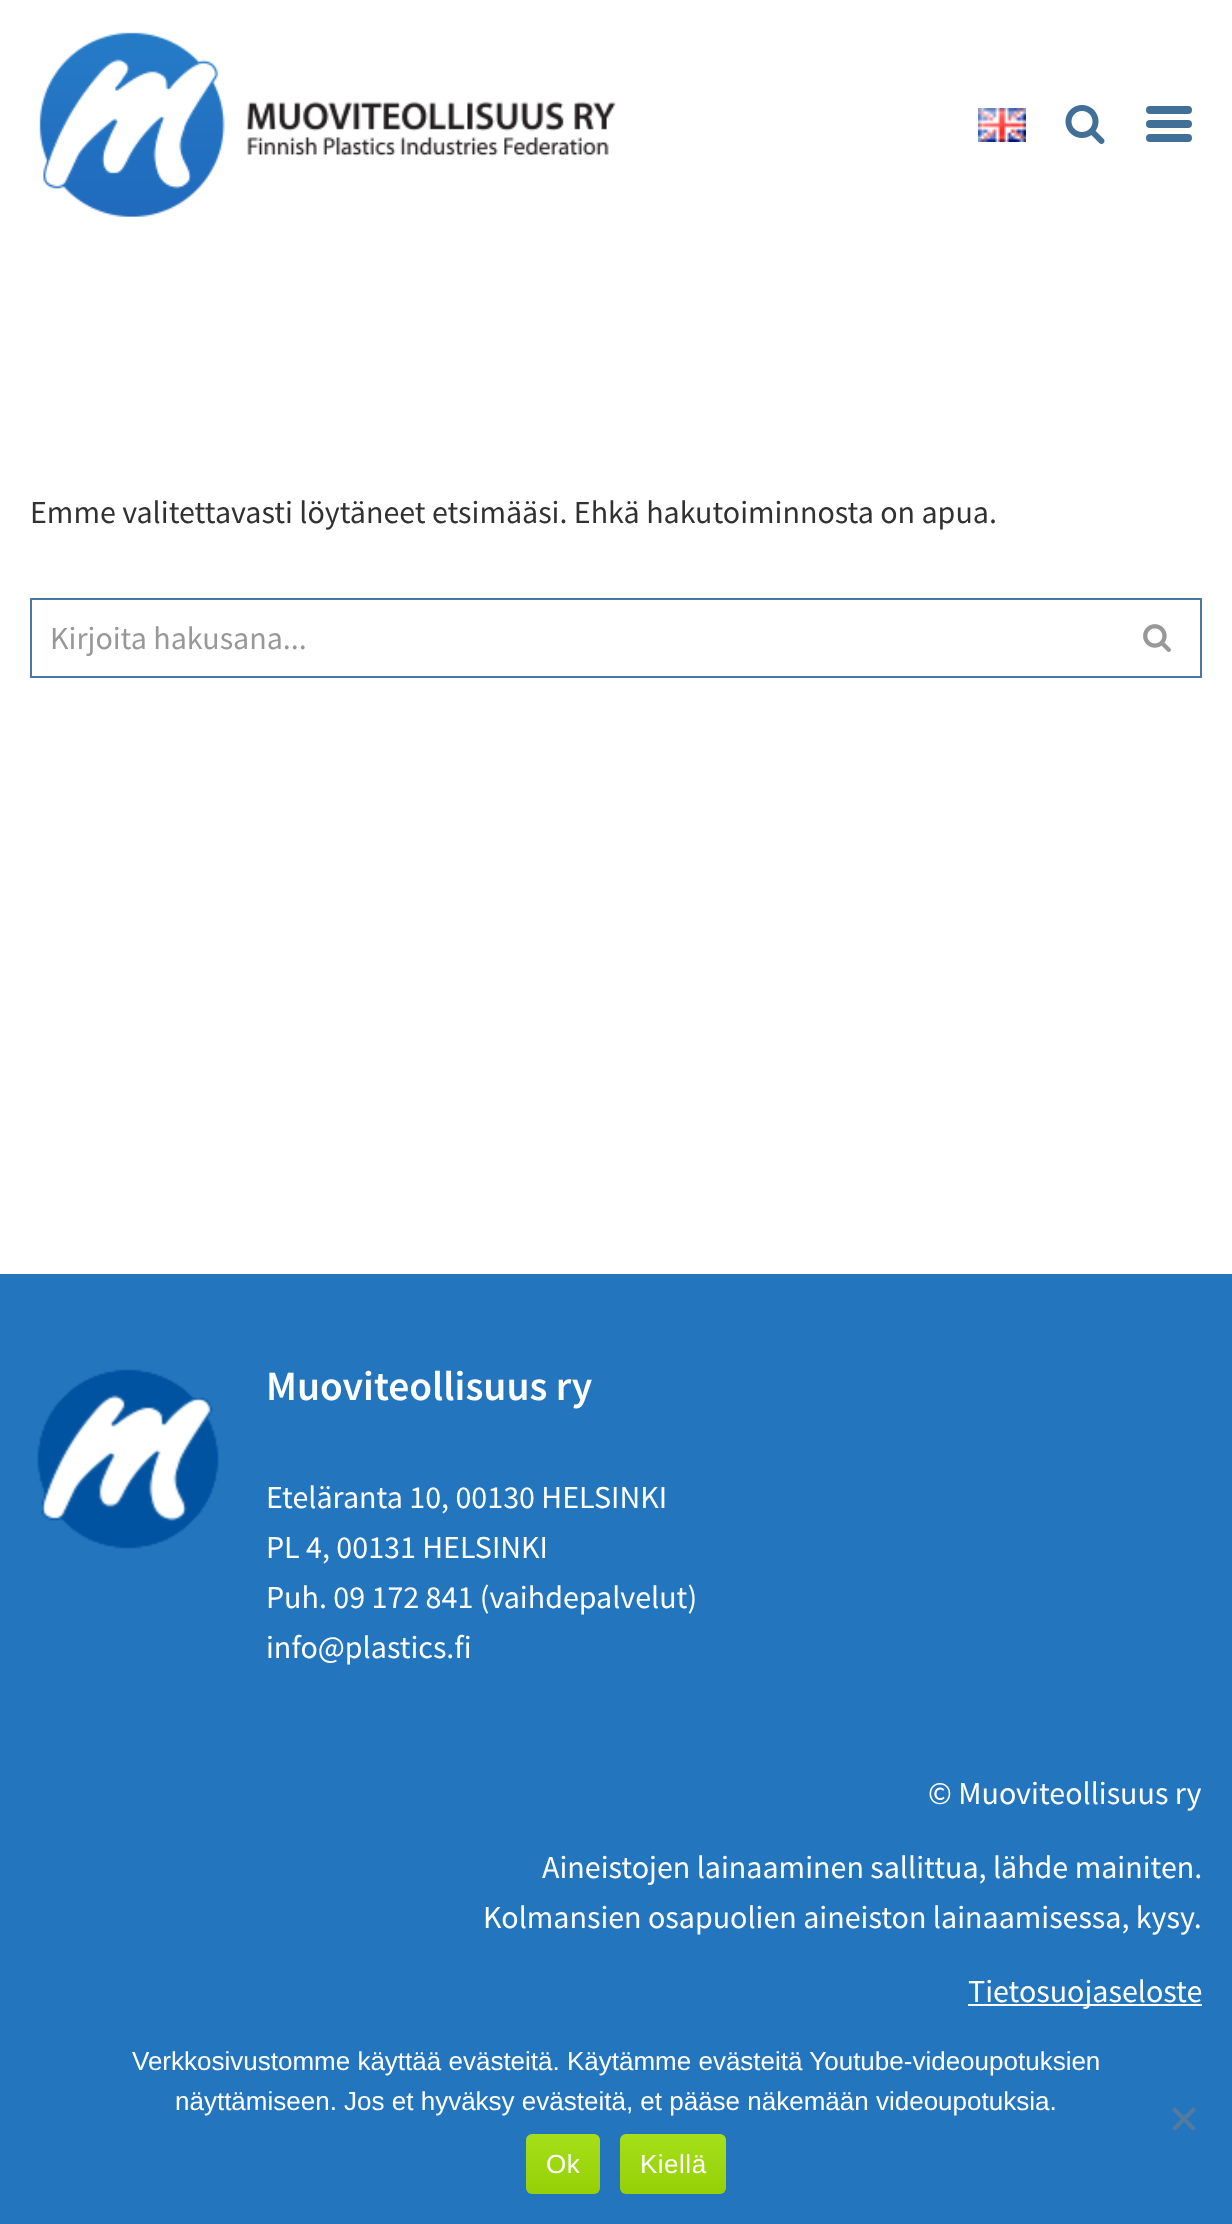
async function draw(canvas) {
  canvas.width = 1232;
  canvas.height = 2224;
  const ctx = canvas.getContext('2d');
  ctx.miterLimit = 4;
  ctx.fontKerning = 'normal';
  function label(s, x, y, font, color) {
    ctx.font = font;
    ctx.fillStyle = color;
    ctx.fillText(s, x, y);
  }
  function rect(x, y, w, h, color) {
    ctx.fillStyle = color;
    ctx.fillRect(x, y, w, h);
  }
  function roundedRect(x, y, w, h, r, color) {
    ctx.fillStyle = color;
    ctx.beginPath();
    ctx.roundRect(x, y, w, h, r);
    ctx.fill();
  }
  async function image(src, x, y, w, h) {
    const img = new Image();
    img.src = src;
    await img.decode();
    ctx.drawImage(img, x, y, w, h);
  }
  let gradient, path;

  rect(0, 0, 1232, 2224, '#fff');
  await image('assets/img1.png', 39, 32, 577, 185);
  await image('assets/img2.png', 978, 108, 48, 34);
  await image('assets/img3.png', 1065, 105, 40, 39);
  roundedRect(1146, 106, 46, 8, 4, '#426f97');
  roundedRect(1146, 120, 46, 8, 4, '#426f97');
  roundedRect(1146, 134, 46, 8, 4, '#426f97');
  label('Emme valitettavasti löytäneet etsimääsi. Ehkä hakutoiminnosta on apua.', 30, 523, '32px Source Sans Pro', '#313131');
  rect(30, 598, 1172, 2, '#4878a3');
  rect(30, 676, 1082, 2, '#4878a3');
  rect(30, 598, 2, 80, '#4878a3');
  label('Kirjoita hakusana...', 50, 649, '32px Source Sans Pro', '#989898');
  rect(1200, 598, 2, 80, '#4878a3');
  rect(1112, 676, 90, 2, '#4878a3');
  await image('assets/img4.png', 1143, 624, 28, 28);
  rect(0, 1274, 1232, 950, '#2375be');
  await image('assets/img5.png', 37, 1369, 182, 180);
  label('Muoviteollisuus ry', 266, 1400, '600 41.5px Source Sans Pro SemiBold', '#fff');
  label('Eteläranta 10, 00130 HELSINKI', 266, 1508, '32px Source Sans Pro', '#fff');
  label('PL 4, 00131 HELSINKI', 266, 1558, '32px Source Sans Pro', '#fff');
  label('Puh. 09 172 841 (vaihdepalvelut)', 266, 1608, '32px Source Sans Pro', '#fff');
  label('info@plastics.fi', 266, 1658, '32px Source Sans Pro', '#fff');
  label('© Muoviteollisuus ry', 928, 1804, '32px Source Sans Pro', '#fff');
  label('Aineistojen lainaaminen sallittua, lähde mainiten.', 542, 1878, '32px Source Sans Pro', '#fff');
  label('Kolmansien osapuolien aineiston lainaamisessa, kysy.', 483, 1928, '32px Source Sans Pro', '#fff');
  rect(968, 2004, 234, 2, '#fff');
  label('Tietosuojaseloste', 968, 2002, '32px Source Sans Pro', '#fff');
  label('Verkkosivustomme käyttää evästeitä. Käytämme evästeitä Youtube-videoupotuksien', 132, 2070, '26px Liberation Sans', '#fff');
  label('näyttämiseen. Jos et hyväksy evästeitä, et pääse näkemään videoupotuksia.', 175, 2110, '26px Liberation Sans', '#fff');
  ctx.fillStyle = '#527b9f';
  path = new Path2D('M1193 2107L1196 2110L1175 2131L1172 2128Z');
  ctx.fill(path);
  path = new Path2D('M1172 2110L1175 2107L1196 2128L1193 2131Z');
  ctx.fill(path);
  gradient = ctx.createLinearGradient(563, 2134, 563, 2194);
  gradient.addColorStop(0, '#a5df19');
  gradient.addColorStop(1, '#95d007');
  ctx.fillStyle = gradient;
  ctx.beginPath();
  ctx.roundRect(526, 2134, 74, 60, 6);
  ctx.fill();
  ctx.letterSpacing = '0.5px';
  label('Ok', 546, 2173, '26px Liberation Sans', '#fff');
  gradient = ctx.createLinearGradient(673, 2134, 673, 2194);
  gradient.addColorStop(0, '#a5df19');
  gradient.addColorStop(1, '#95d007');
  ctx.fillStyle = gradient;
  ctx.beginPath();
  ctx.roundRect(620, 2134, 106, 60, 6);
  ctx.fill();
  label('Kiellä', 640, 2173, '26px Liberation Sans', '#fff');
}

draw(document.querySelector('canvas'));
